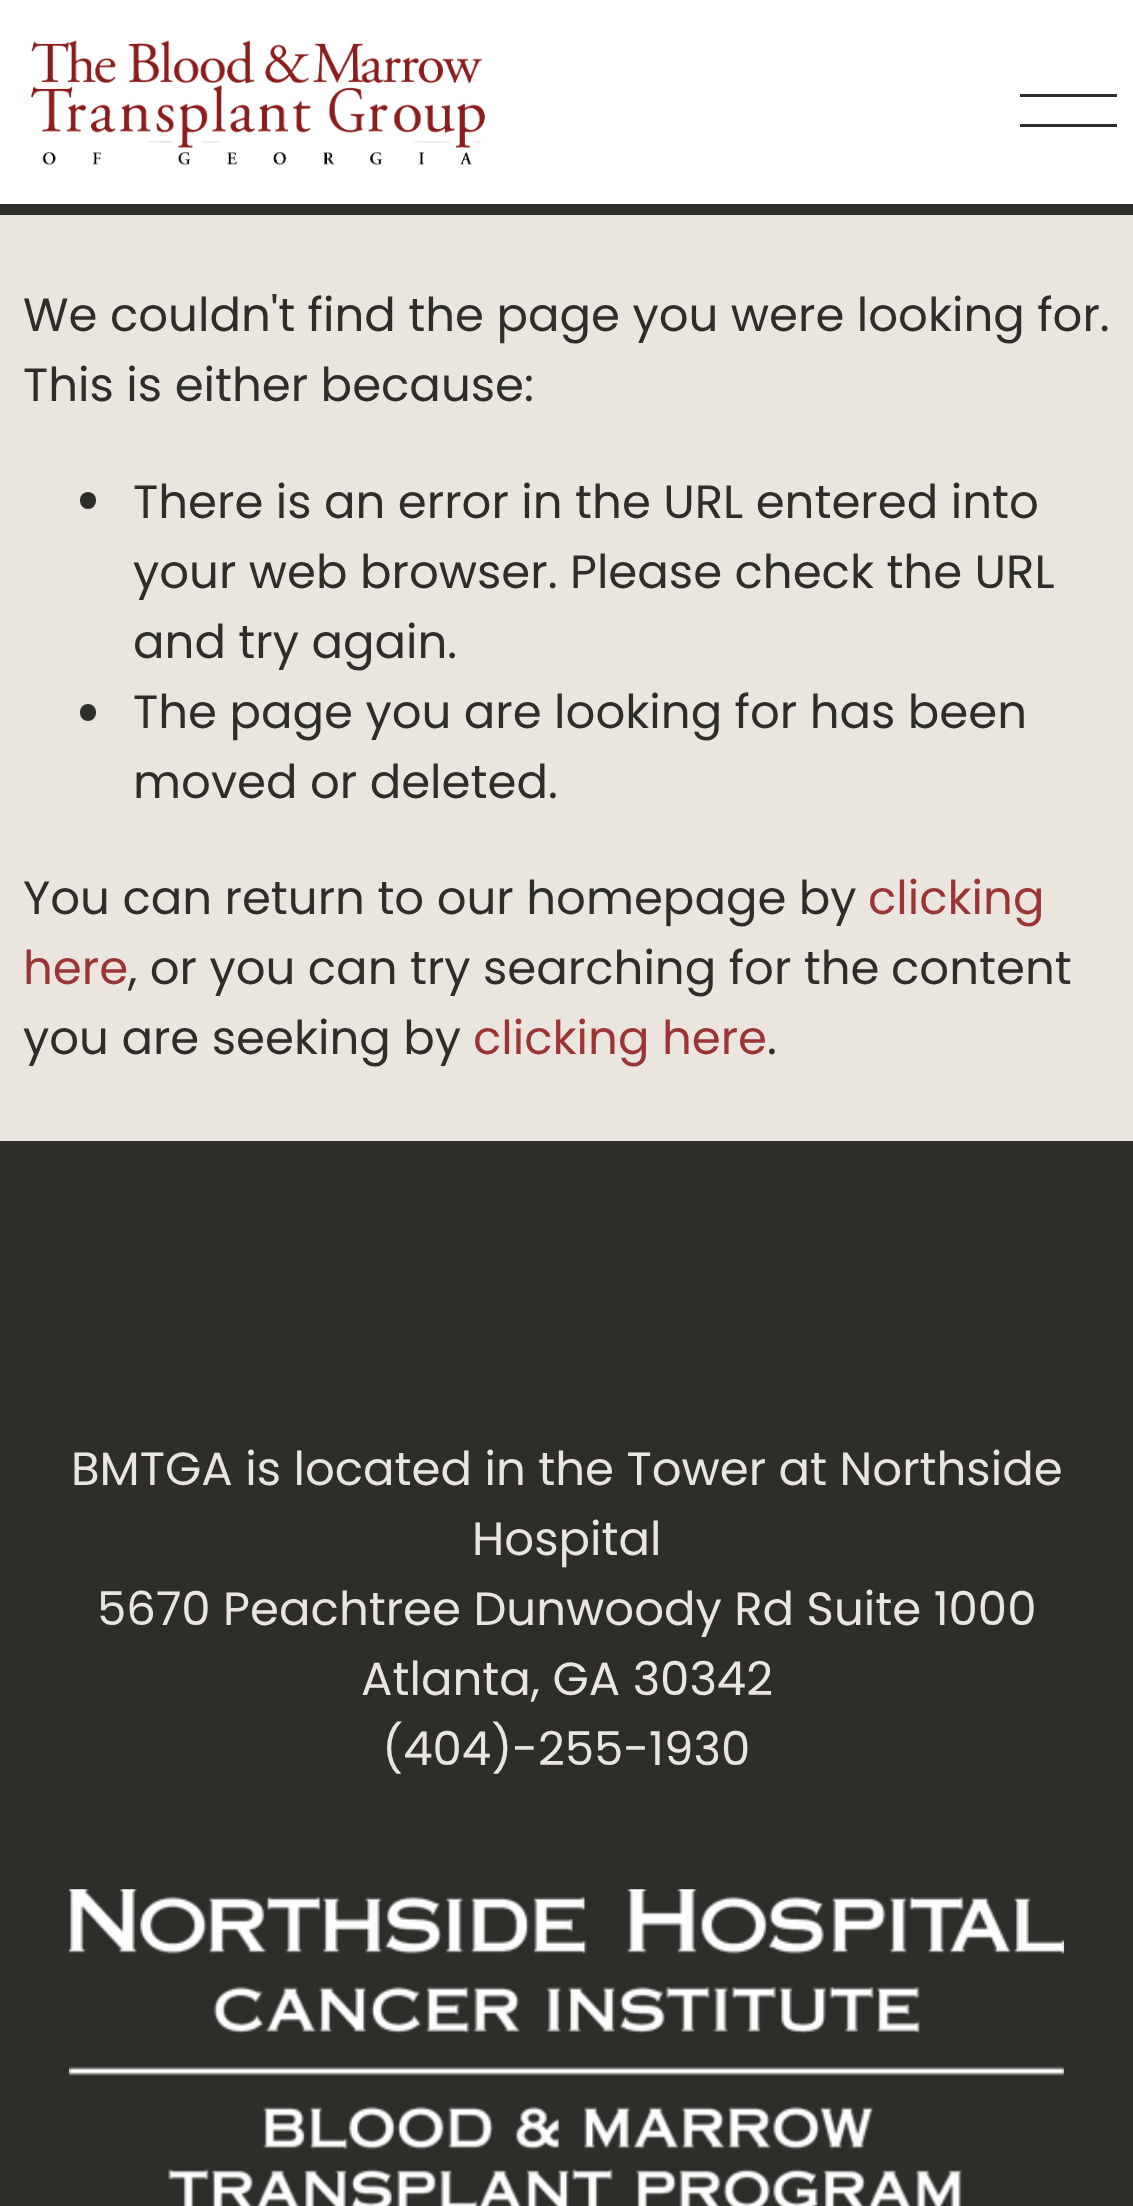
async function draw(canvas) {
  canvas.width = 1133;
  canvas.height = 2206;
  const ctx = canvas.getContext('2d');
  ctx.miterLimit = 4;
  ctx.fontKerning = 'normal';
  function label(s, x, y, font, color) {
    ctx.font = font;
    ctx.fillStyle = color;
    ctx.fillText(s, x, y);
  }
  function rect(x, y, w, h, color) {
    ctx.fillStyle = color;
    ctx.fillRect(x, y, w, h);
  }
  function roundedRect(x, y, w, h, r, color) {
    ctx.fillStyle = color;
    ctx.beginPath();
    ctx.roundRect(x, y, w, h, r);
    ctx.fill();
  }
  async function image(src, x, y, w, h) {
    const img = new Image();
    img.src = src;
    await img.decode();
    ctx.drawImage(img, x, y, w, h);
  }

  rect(0, 0, 1133, 2206, '#eae6dd');
  rect(0, 0, 1133, 204, '#fff');
  await image('assets/img1.png', 30, 40, 455, 125);
  rect(1020, 94, 97, 3, '#2d2d2a');
  rect(1020, 124, 97, 3, '#2d2d2a');
  rect(0, 204, 1133, 11, '#2d2d2a');
  label('We couldn\'t find the page you were looking for.', 23, 331, '46.65px Poppins', '#2d2d2a');
  label('This is either because:', 23, 401, '46.65px Poppins', '#2d2d2a');
  roundedRect(80, 492, 16, 17, 8, '#2d2d2a');
  label('There is an error in the URL entered into', 133, 518, '46.65px Poppins', '#2d2d2a');
  label('your web browser. Please check the URL', 133, 588, '46.65px Poppins', '#2d2d2a');
  label('and try again.', 133, 658, '46.65px Poppins', '#2d2d2a');
  roundedRect(80, 704, 16, 17, 8, '#2d2d2a');
  label('The page you are looking for has been', 133, 728, '46.65px Poppins', '#2d2d2a');
  label('moved or deleted.', 133, 798, '46.65px Poppins', '#2d2d2a');
  label('You can return to our homepage by', 23, 914, '46.65px Poppins', '#2d2d2a');
  label('clicking', 868, 914, '46.65px Poppins', '#9b3434');
  label('here', 23, 984, '46.65px Poppins', '#9b3434');
  label(', or you can try searching for the', 128, 984, '46.65px Poppins', '#2d2d2a');
  label('content', 891, 984, '46.65px Poppins', '#2d2d2a');
  label('you are seeking by', 23, 1054, '46.65px Poppins', '#2d2d2a');
  label('clicking here', 473, 1054, '46.65px Poppins', '#9b3434');
  label('.', 767, 1054, '46.65px Poppins', '#2d2d2a');
  rect(0, 1141, 1133, 1065, '#2d2d2a');
  label('BMTGA is located in the Tower at Northside', 71, 1485, '46.65px Poppins', '#eae6dd');
  label('Hospital', 472, 1555, '46.65px Poppins', '#eae6dd');
  label('5670 Peachtree Dunwoody Rd Suite 1000', 97, 1625, '46.65px Poppins', '#eae6dd');
  label('Atlanta, GA 30342', 361, 1695, '46.65px Poppins', '#eae6dd');
  label('(404)-255-1930', 382, 1765, '46.65px Poppins', '#eae6dd');
  await image('assets/img2.png', 68, 1889, 997, 317);
}

draw(document.querySelector('canvas'));
